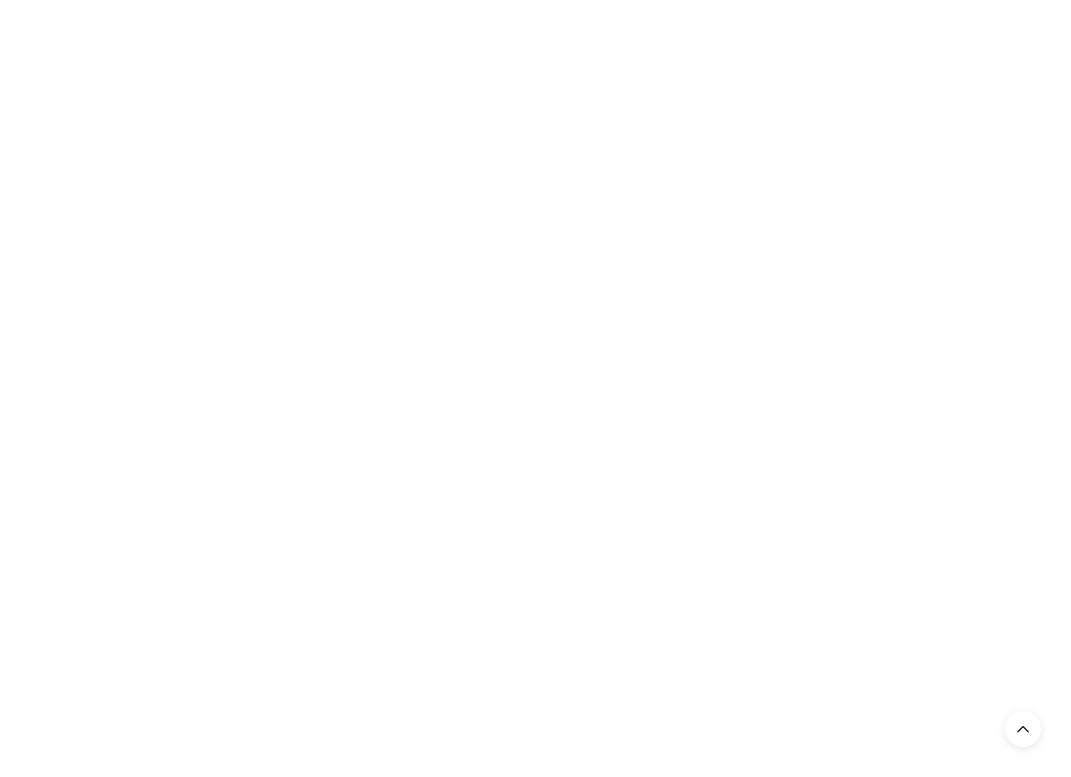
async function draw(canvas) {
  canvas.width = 1071;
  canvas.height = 777;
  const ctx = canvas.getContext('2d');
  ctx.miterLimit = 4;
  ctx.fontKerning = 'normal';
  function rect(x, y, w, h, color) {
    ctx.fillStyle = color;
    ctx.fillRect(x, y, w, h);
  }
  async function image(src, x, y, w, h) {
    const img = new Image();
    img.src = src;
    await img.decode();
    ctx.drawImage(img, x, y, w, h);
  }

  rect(0, 0, 1071, 777, '#fff');
  ctx.fillStyle = '#0000001a';
  ctx.filter = 'blur(4px)';
  ctx.beginPath();
  ctx.roundRect(1005, 713, 36, 36, 18);
  ctx.fill();
  ctx.filter = 'none';
  ctx.fillStyle = '#fff';
  ctx.beginPath();
  ctx.arc(1023, 729, 18, 0, 2 * Math.PI);
  ctx.fill();
  await image('assets/img1.png', 1017, 726, 12, 7);
}

draw(document.querySelector('canvas'));
